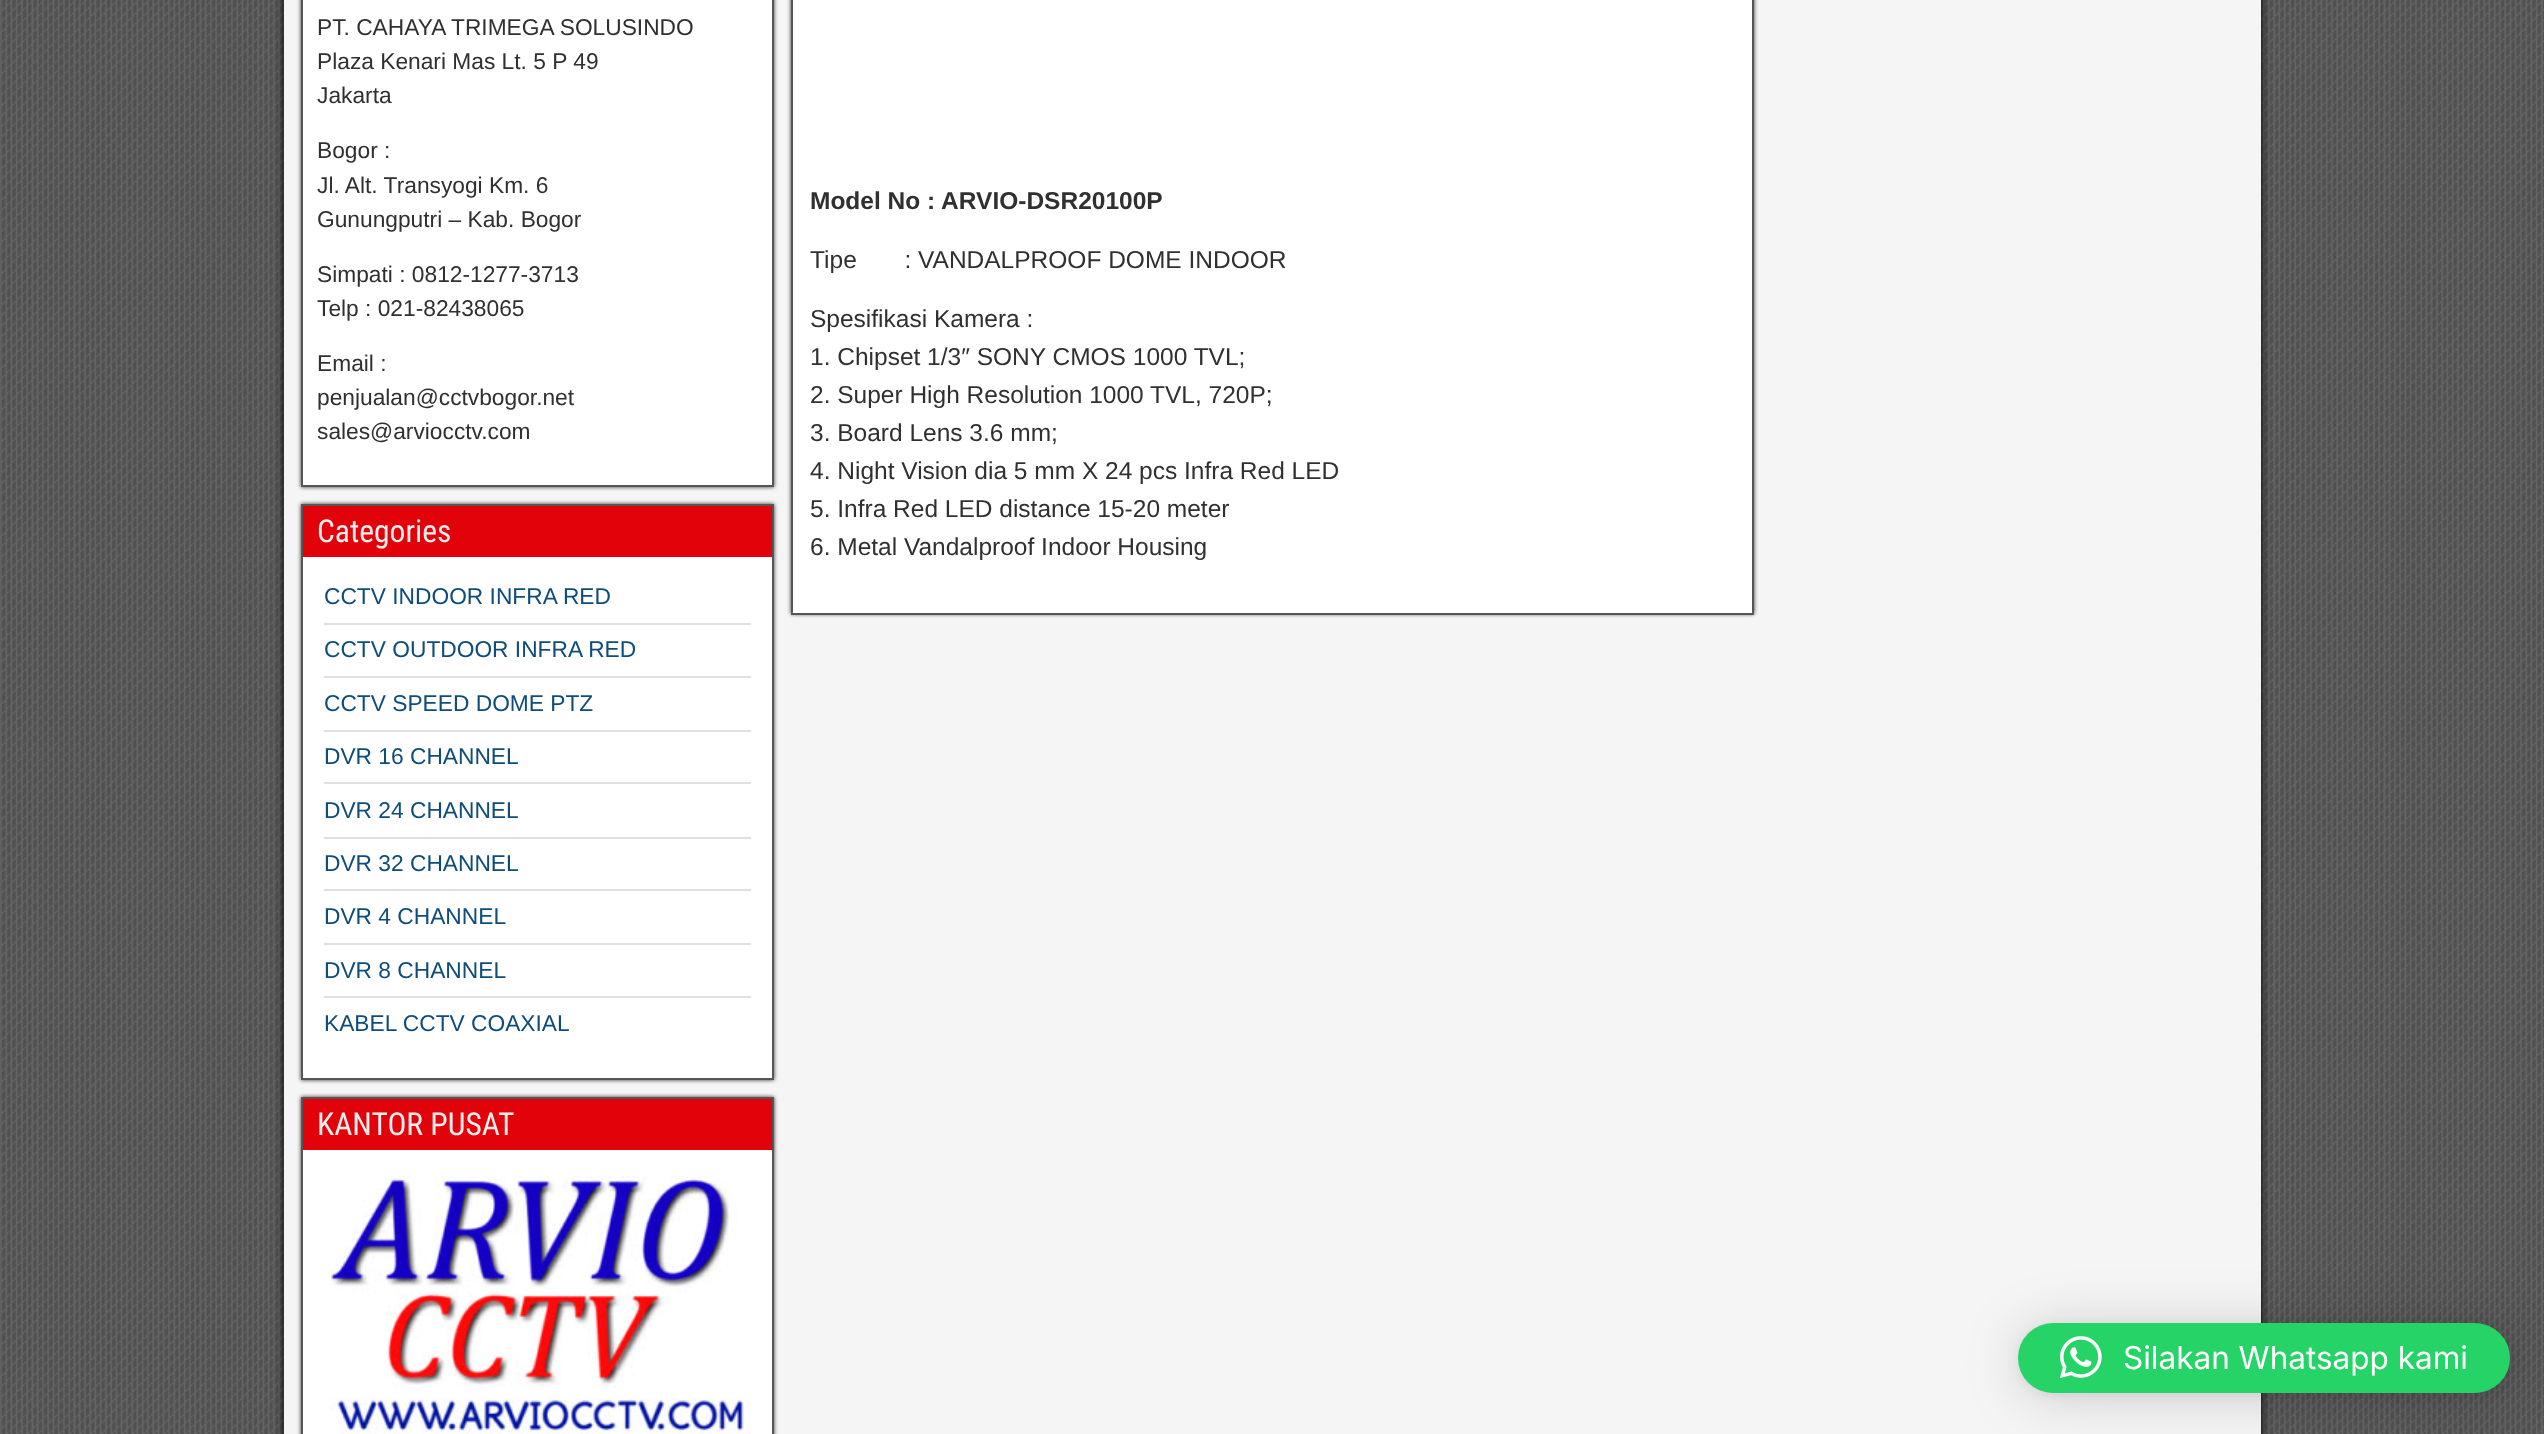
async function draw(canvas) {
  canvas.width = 2544;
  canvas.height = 1434;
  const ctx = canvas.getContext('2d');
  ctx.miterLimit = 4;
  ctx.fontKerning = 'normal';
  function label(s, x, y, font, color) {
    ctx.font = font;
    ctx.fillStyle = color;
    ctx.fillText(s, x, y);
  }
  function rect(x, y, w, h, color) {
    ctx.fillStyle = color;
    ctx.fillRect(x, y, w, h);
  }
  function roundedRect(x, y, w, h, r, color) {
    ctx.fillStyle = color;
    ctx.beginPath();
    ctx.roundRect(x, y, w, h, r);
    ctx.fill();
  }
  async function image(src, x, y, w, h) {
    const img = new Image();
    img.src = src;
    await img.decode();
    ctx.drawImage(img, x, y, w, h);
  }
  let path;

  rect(0, 0, 2544, 1434, '#505050');
  await image('assets/img1.png', 0, 0, 2544, 1434);
  ctx.fillStyle = '#000';
  ctx.filter = 'blur(5px)';
  ctx.beginPath();
  ctx.rect(284, -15, 1977, 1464);
  ctx.fill();
  ctx.filter = 'none';
  rect(284, 0, 1977, 1434, '#f5f5f5');
  ctx.fillStyle = '#333';
  ctx.filter = 'blur(2px)';
  ctx.beginPath();
  ctx.rect(301, -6, 473, 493);
  ctx.fill();
  ctx.filter = 'none';
  ctx.fillStyle = '#fff';
  ctx.beginPath();
  ctx.rect(302, -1, 471, 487);
  ctx.fill();
  ctx.strokeStyle = '#555';
  ctx.lineWidth = 2;
  ctx.stroke();
  label('PT. CAHAYA TRIMEGA SOLUSINDO', 317, 35, '22.75px Liberation Sans', '#303030');
  label('Plaza Kenari Mas Lt. 5 P 49', 317, 69, '22.75px Liberation Sans', '#303030');
  label('Jakarta', 317, 103, '22.75px Liberation Sans', '#303030');
  label('Bogor :', 317, 158, '22.75px Liberation Sans', '#303030');
  label('Jl. Alt. Transyogi Km. 6', 317, 193, '22.75px Liberation Sans', '#303030');
  label('Gunungputri – Kab. Bogor', 317, 227, '22.75px Liberation Sans', '#303030');
  label('Simpati : 0812-1277-3713', 317, 282, '22.75px Liberation Sans', '#303030');
  label('Telp : 021-82438065', 317, 316, '22.75px Liberation Sans', '#303030');
  label('Email :', 317, 371, '22.75px Liberation Sans', '#303030');
  label('penjualan@cctvbogor.net', 317, 405, '22.75px Liberation Sans', '#303030');
  label('sales@arviocctv.com', 317, 439, '22.75px Liberation Sans', '#303030');
  ctx.fillStyle = '#333';
  ctx.filter = 'blur(2px)';
  ctx.beginPath();
  ctx.rect(301, 504, 473, 576);
  ctx.fill();
  ctx.filter = 'none';
  rect(303, 557, 469, 521, '#fff');
  ctx.strokeRect(302, 505, 471, 574);
  rect(303, 506, 469, 51, '#e20209');
  label('Categories', 317, 542, '31.5px Roboto Condensed', '#eee');
  rect(324, 623, 427, 2, '#e0e0e0');
  label('CCTV INDOOR INFRA RED', 324, 604, '22.75px Liberation Sans', '#0e4d7a');
  rect(324, 676, 427, 2, '#e0e0e0');
  label('CCTV OUTDOOR INFRA RED', 324, 657, '22.75px Liberation Sans', '#0e4d7a');
  rect(324, 730, 427, 2, '#e0e0e0');
  label('CCTV SPEED DOME PTZ', 324, 711, '22.75px Liberation Sans', '#0e4d7a');
  rect(324, 782, 427, 2, '#e0e0e0');
  label('DVR 16 CHANNEL', 324, 764, '22.75px Liberation Sans', '#0e4d7a');
  rect(324, 837, 427, 2, '#e0e0e0');
  label('DVR 24 CHANNEL', 324, 818, '22.75px Liberation Sans', '#0e4d7a');
  rect(324, 889, 427, 2, '#e0e0e0');
  label('DVR 32 CHANNEL', 324, 871, '22.75px Liberation Sans', '#0e4d7a');
  rect(324, 943, 427, 2, '#e0e0e0');
  label('DVR 4 CHANNEL', 324, 924, '22.75px Liberation Sans', '#0e4d7a');
  rect(324, 996, 427, 2, '#e0e0e0');
  label('DVR 8 CHANNEL', 324, 978, '22.75px Liberation Sans', '#0e4d7a');
  label('KABEL CCTV COAXIAL', 324, 1031, '22.75px Liberation Sans', '#0e4d7a');
  ctx.fillStyle = '#333';
  ctx.filter = 'blur(2px)';
  ctx.beginPath();
  ctx.rect(301, 1097, 473, 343);
  ctx.fill();
  ctx.filter = 'none';
  rect(303, 1150, 469, 284, '#fff');
  ctx.strokeRect(302, 1098, 471, 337);
  rect(303, 1099, 469, 51, '#e20209');
  label('KANTOR PUSAT', 317, 1135, '31.5px Roboto Condensed', '#eee');
  await image('assets/img2.png', 328, 1175, 423, 259);
  ctx.fillStyle = '#333';
  ctx.filter = 'blur(2px)';
  ctx.beginPath();
  ctx.rect(791, -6, 963, 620);
  ctx.fill();
  ctx.filter = 'none';
  rect(793, 0, 959, 613, '#fff');
  ctx.fillStyle = '#555';
  path = new Path2D('M1754-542V614L1752 612V-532Z');
  ctx.fill(path);
  rect(791, 613, 963, 2, '#555');
  path = new Path2D('M791 614V-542L793-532V612Z');
  ctx.fill(path);
  label('Model No : ARVIO-DSR20100P', 810, 209, 'bold 24.5px Arimo', '#303030');
  label('Tipe       : VANDALPROOF DOME INDOOR', 810, 268, '24.5px Arimo', '#303030');
  label('Spesifikasi Kamera :', 810, 327, '24.5px Arimo', '#303030');
  label('1. Chipset 1/3″ SONY CMOS 1000 TVL;', 810, 365, '24.5px Arimo', '#303030');
  label('2. Super High Resolution 1000 TVL, 720P;', 810, 403, '24.5px Arimo', '#303030');
  label('3. Board Lens 3.6 mm;', 810, 441, '24.5px Arimo', '#303030');
  label('4. Night Vision dia 5 mm X 24 pcs Infra Red LED', 810, 479, '24.5px Arimo', '#303030');
  label('5. Infra Red LED distance 15-20 meter', 810, 517, '24.5px Arimo', '#303030');
  label('6. Metal Vandalproof Indoor Housing', 810, 555, '24.5px Arimo', '#303030');
  ctx.fillStyle = '#00000029';
  ctx.filter = 'blur(28px)';
  ctx.beginPath();
  ctx.roundRect(2018, 1327, 492, 70, 35);
  ctx.fill();
  ctx.filter = 'none';
  ctx.fillStyle = '#0000000f';
  ctx.filter = 'blur(5px)';
  ctx.beginPath();
  ctx.roundRect(2018, 1325, 492, 70, 35);
  ctx.fill();
  ctx.filter = 'none';
  roundedRect(2018, 1323, 492, 70, 35, '#25d366');
  await image('assets/img3.png', 2060, 1336, 42, 42);
  label('Silakan Whatsapp kami', 2123, 1369, '31.5px Inter', '#fff');
}

draw(document.querySelector('canvas'));
